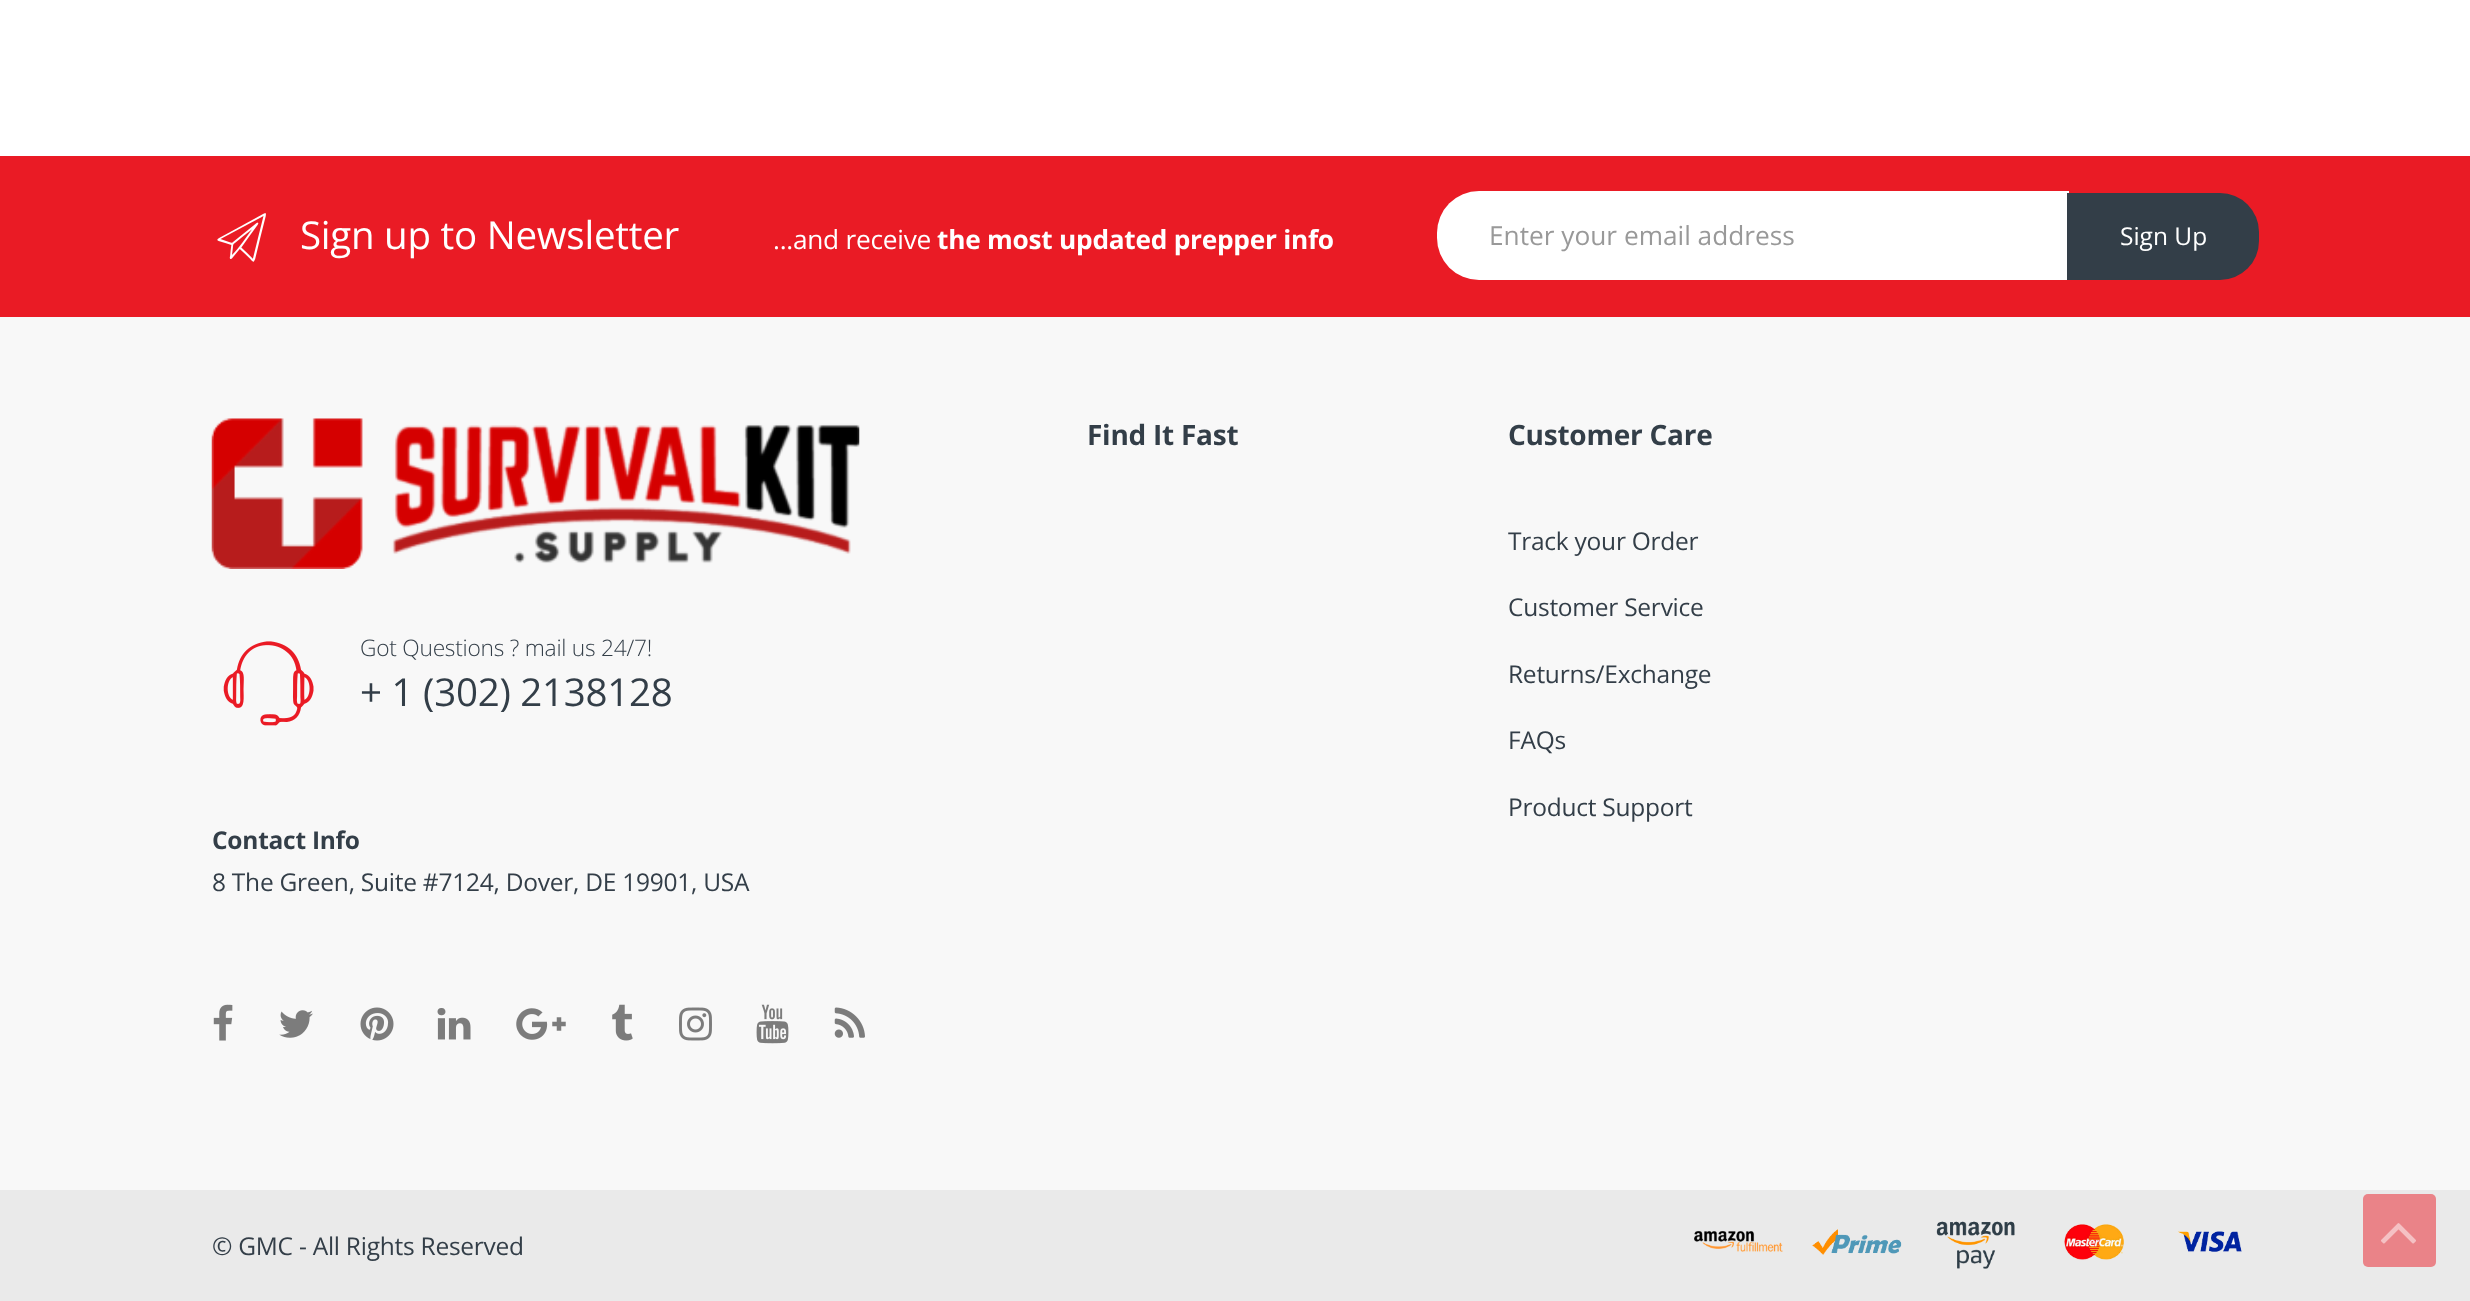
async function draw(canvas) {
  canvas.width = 2470;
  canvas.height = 1301;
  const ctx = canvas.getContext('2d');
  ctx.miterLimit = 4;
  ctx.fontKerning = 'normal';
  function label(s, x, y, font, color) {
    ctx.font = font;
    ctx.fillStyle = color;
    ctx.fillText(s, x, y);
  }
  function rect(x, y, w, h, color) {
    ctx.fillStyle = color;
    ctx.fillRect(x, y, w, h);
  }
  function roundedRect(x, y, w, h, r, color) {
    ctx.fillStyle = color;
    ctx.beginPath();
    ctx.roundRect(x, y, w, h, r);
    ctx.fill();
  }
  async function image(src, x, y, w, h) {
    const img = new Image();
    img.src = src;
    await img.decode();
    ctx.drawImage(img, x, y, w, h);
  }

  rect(0, 0, 2470, 1301, '#fff');
  rect(0, 156, 2470, 161, '#ea1b25');
  await image('assets/img1.png', 217, 213, 49, 49);
  ctx.letterSpacing = '-0.25px';
  label('Sign up to Newsletter', 300, 249, '38.5px Open Sans', '#fff');
  label('...and receive', 773, 249, '26.25px Open Sans', '#fff');
  label('the most updated prepper info', 937, 249, 'bold 26.25px Open Sans', '#fff');
  ctx.beginPath();
  ctx.roundRect(1437, 191, 632, 89, [42, 0, 0, 42]);
  ctx.fill();
  ctx.letterSpacing = '0px';
  label('Enter your email address', 1489, 245, '26.25px Open Sans', '#999');
  ctx.fillStyle = '#333e48';
  ctx.beginPath();
  ctx.roundRect(2067, 193, 192, 87, [0, 39, 39, 0]);
  ctx.fill();
  label('Sign Up', 2120, 245, '24.5px Open Sans', '#fff');
  rect(0, 317, 2470, 873, '#f8f8f8');
  await image('assets/img2.png', 211, 418, 649, 151);
  await image('assets/img3.png', 223, 641, 91, 85);
  ctx.letterSpacing = '-0.25px';
  label('Got Questions ? mail us 24/7!', 360, 656, '300 22.75px Open Sans', '#333e48');
  label('+ 1 (302) 2138128', 360, 706, '38.5px Open Sans', '#333e48');
  label('Contact Info', 212, 849, 'bold 24.5px Open Sans', '#333e48');
  label('8 The Green, Suite #7124, Dover, DE 19901, USA', 212, 891, '24.5px Open Sans', '#333e48');
  await image('assets/img4.png', 213, 1004, 20, 37);
  await image('assets/img5.png', 279, 1010, 34, 28);
  await image('assets/img6.png', 360, 1007, 34, 34);
  await image('assets/img7.png', 437, 1008, 34, 32);
  await image('assets/img8.png', 516, 1008, 50, 32);
  await image('assets/img9.png', 612, 1004, 21, 37);
  await image('assets/img10.png', 679, 1007, 33, 34);
  await image('assets/img11.png', 756, 1004, 33, 40);
  await image('assets/img12.png', 834, 1007, 31, 31);
  label('Find It Fast', 1087, 445, 'bold 28px Open Sans', '#333e48');
  label('Customer Care', 1508, 445, 'bold 28px Open Sans', '#333e48');
  label('Track your Order', 1508, 550, '24.5px Open Sans', '#333e48');
  label('Customer Service', 1508, 616, '24.5px Open Sans', '#333e48');
  label('Returns/Exchange', 1508, 683, '24.5px Open Sans', '#333e48');
  label('FAQs', 1508, 749, '24.5px Open Sans', '#333e48');
  label('Product Support', 1508, 816, '24.5px Open Sans', '#333e48');
  rect(0, 1190, 2470, 111, '#eaeaea');
  label('© GMC - All Rights Reserved', 212, 1255, '24.5px Open Sans', '#333e48');
  await image('assets/img13.png', 1694, 1230, 89, 22);
  await image('assets/img14.png', 1812, 1229, 90, 26);
  await image('assets/img15.png', 1936, 1221, 79, 48);
  await image('assets/img16.png', 2064, 1224, 60, 36);
  await image('assets/img17.png', 2178, 1231, 64, 21);
  roundedRect(2363, 1194, 73, 73, 5, '#ea8388');
  await image('assets/img18.png', 2381, 1223, 35, 21);
}

draw(document.querySelector('canvas'));
